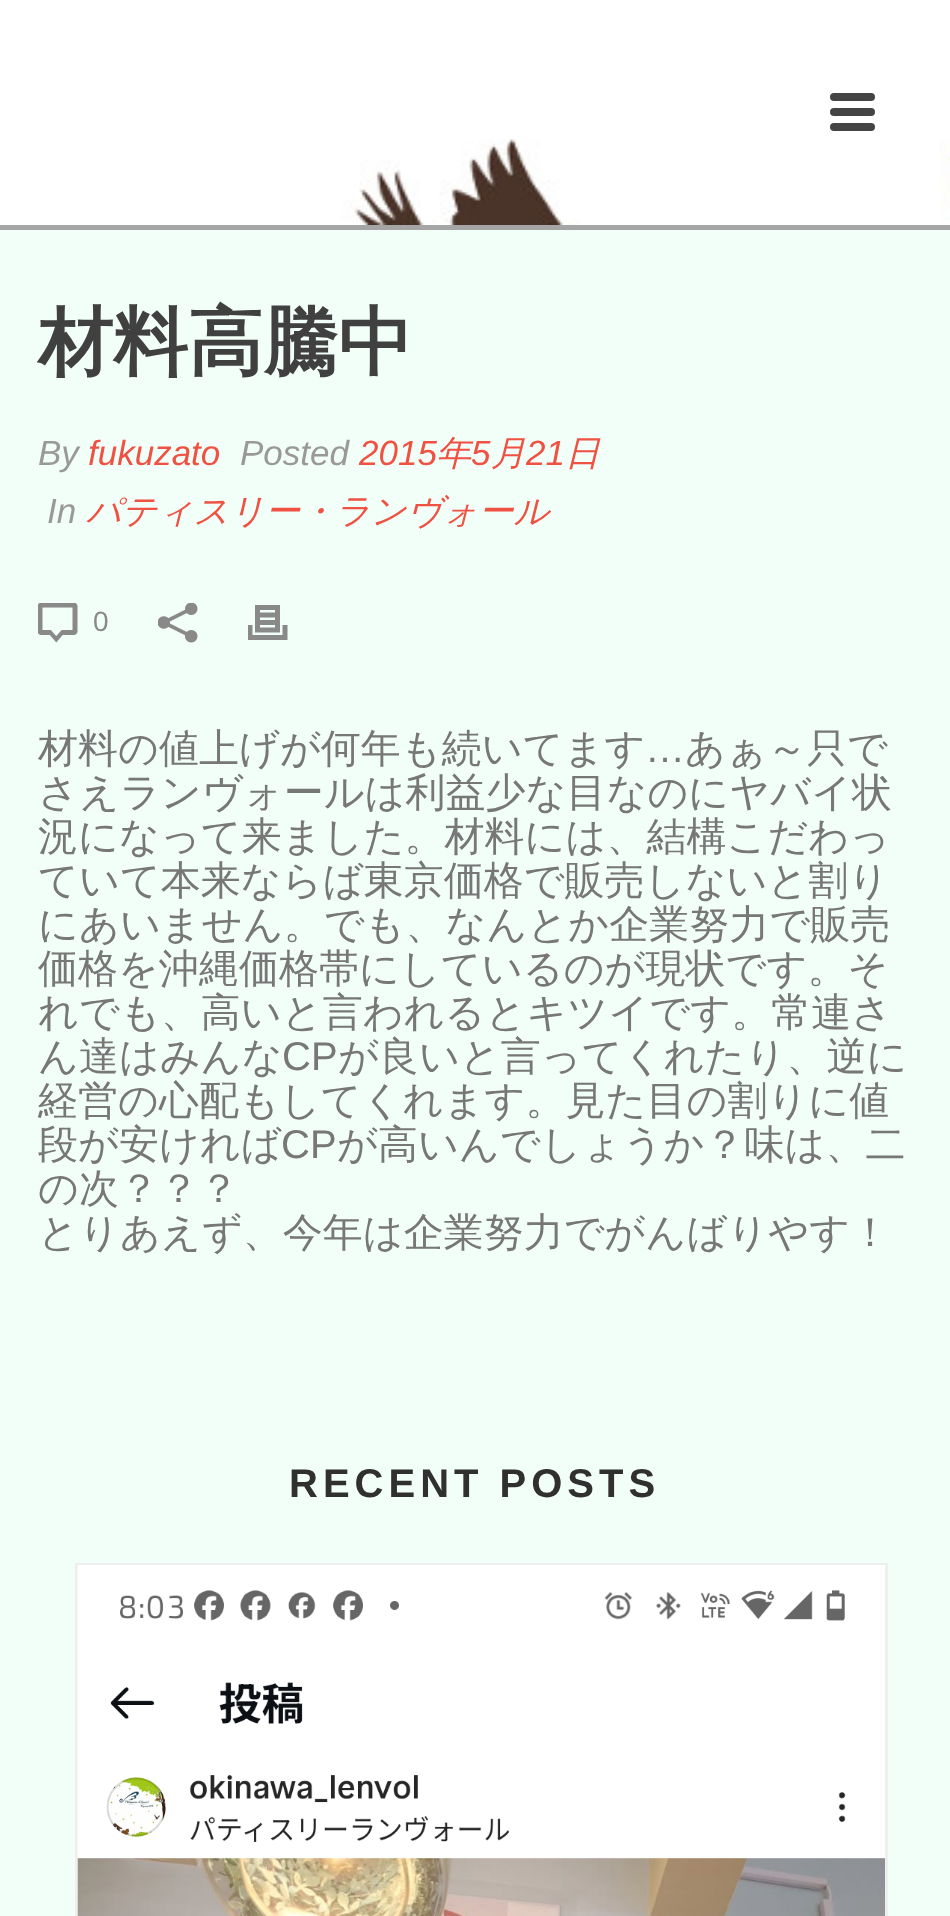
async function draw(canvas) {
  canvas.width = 950;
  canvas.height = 1916;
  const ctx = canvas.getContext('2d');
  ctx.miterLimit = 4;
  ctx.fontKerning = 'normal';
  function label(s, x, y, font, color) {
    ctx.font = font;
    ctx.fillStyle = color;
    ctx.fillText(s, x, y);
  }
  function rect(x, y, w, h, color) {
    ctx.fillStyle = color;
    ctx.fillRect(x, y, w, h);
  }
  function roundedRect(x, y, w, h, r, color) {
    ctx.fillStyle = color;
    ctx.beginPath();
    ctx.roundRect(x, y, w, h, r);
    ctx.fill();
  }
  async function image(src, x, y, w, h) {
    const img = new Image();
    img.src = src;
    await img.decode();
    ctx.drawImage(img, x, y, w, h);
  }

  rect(0, 0, 950, 1916, '#f2fff8');
  rect(0, 0, 950, 225, '#fff');
  rect(0, 225, 950, 5, '#a5a5a5');
  roundedRect(830, 93, 45, 8, 4, '#444');
  roundedRect(830, 108, 45, 8, 4, '#444');
  roundedRect(830, 123, 45, 8, 4, '#444');
  await image('assets/img1.png', 341, 139, 609, 86);
  label('材料高騰中', 38, 368, 'bold 75px WenQuanYi Zen Hei', '#404040');
  label('By', 38, 465, 'italic 35px Liberation Sans', '#999');
  label('fukuzato', 88, 465, 'italic 35px Liberation Sans', '#ef5142');
  label('Posted', 240, 465, 'italic 35px Liberation Sans', '#999');
  label('2015', 359, 465, 'italic 35px Liberation Sans', '#ef5142');
  label('年', 436, 465, 'italic 500 35px WenQuanYi Zen Hei', '#ef5142');
  label('5', 471, 465, 'italic 35px Liberation Sans', '#ef5142');
  label('月', 491, 465, 'italic 500 35px WenQuanYi Zen Hei', '#ef5142');
  label('21', 526, 465, 'italic 35px Liberation Sans', '#ef5142');
  label('日', 565, 465, 'italic 500 35px WenQuanYi Zen Hei', '#ef5142');
  label('In', 47, 523, 'italic 35px Liberation Sans', '#999');
  label('パティスリー・ランヴォール', 86, 523, 'italic 500 35px WenQuanYi Zen Hei', '#ef5142');
  await image('assets/img2.png', 38, 603, 40, 40);
  label('0', 93, 631, '28px Liberation Sans', '#898989');
  await image('assets/img3.png', 158, 603, 40, 40);
  await image('assets/img4.png', 248, 605, 40, 35);
  label('材料の値上げが何年も続いてます', 38, 762, '500 40px WenQuanYi Zen Hei', '#777');
  label('…', 645, 762, '40px Liberation Sans', '#777');
  label('あぁ～只で', 685, 762, '500 40px WenQuanYi Zen Hei', '#777');
  label('さえランヴォールは利益少な目なのにヤバイ状', 38, 806, '500 40px WenQuanYi Zen Hei', '#777');
  label('況になって来ました。材料には、結構こだわっ', 38, 850, '500 40px WenQuanYi Zen Hei', '#777');
  label('ていて本来ならば東京価格で販売しないと割り', 38, 894, '500 40px WenQuanYi Zen Hei', '#777');
  label('にあいません。でも、なんとか企業努力で販売', 38, 938, '500 40px WenQuanYi Zen Hei', '#777');
  label('価格を沖縄価格帯にしているのが現状です。そ', 38, 982, '500 40px WenQuanYi Zen Hei', '#777');
  label('れでも、高いと言われるとキツイです。常連さ', 38, 1026, '500 40px WenQuanYi Zen Hei', '#777');
  label('ん達はみんな', 38, 1070, '500 40px WenQuanYi Zen Hei', '#777');
  label('CP', 282, 1070, '40px Liberation Sans', '#777');
  label('が良いと言ってくれたり、逆に', 338, 1070, '500 40px WenQuanYi Zen Hei', '#777');
  label('経営の心配もしてくれます。見た目の割りに値', 38, 1114, '500 40px WenQuanYi Zen Hei', '#777');
  label('段が安ければ', 38, 1158, '500 40px WenQuanYi Zen Hei', '#777');
  label('CP', 281, 1158, '40px Liberation Sans', '#777');
  label('が高いんでしょうか？味は、二', 337, 1158, '500 40px WenQuanYi Zen Hei', '#777');
  label('の次？？？', 38, 1202, '500 40px WenQuanYi Zen Hei', '#777');
  label('とりあえず、今年は企業努力でがんばりやす！', 38, 1246, '500 40px WenQuanYi Zen Hei', '#777');
  ctx.letterSpacing = '5px';
  label('RECENT POSTS', 289, 1497, 'bold 40px Liberation Sans', '#303030');
  ctx.strokeStyle = '#efefef';
  ctx.lineWidth = 3;
  ctx.strokeRect(76.5, 1564.5, 810, 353);
  await image('assets/img5.png', 77, 1565, 808, 351);
}

draw(document.querySelector('canvas'));
